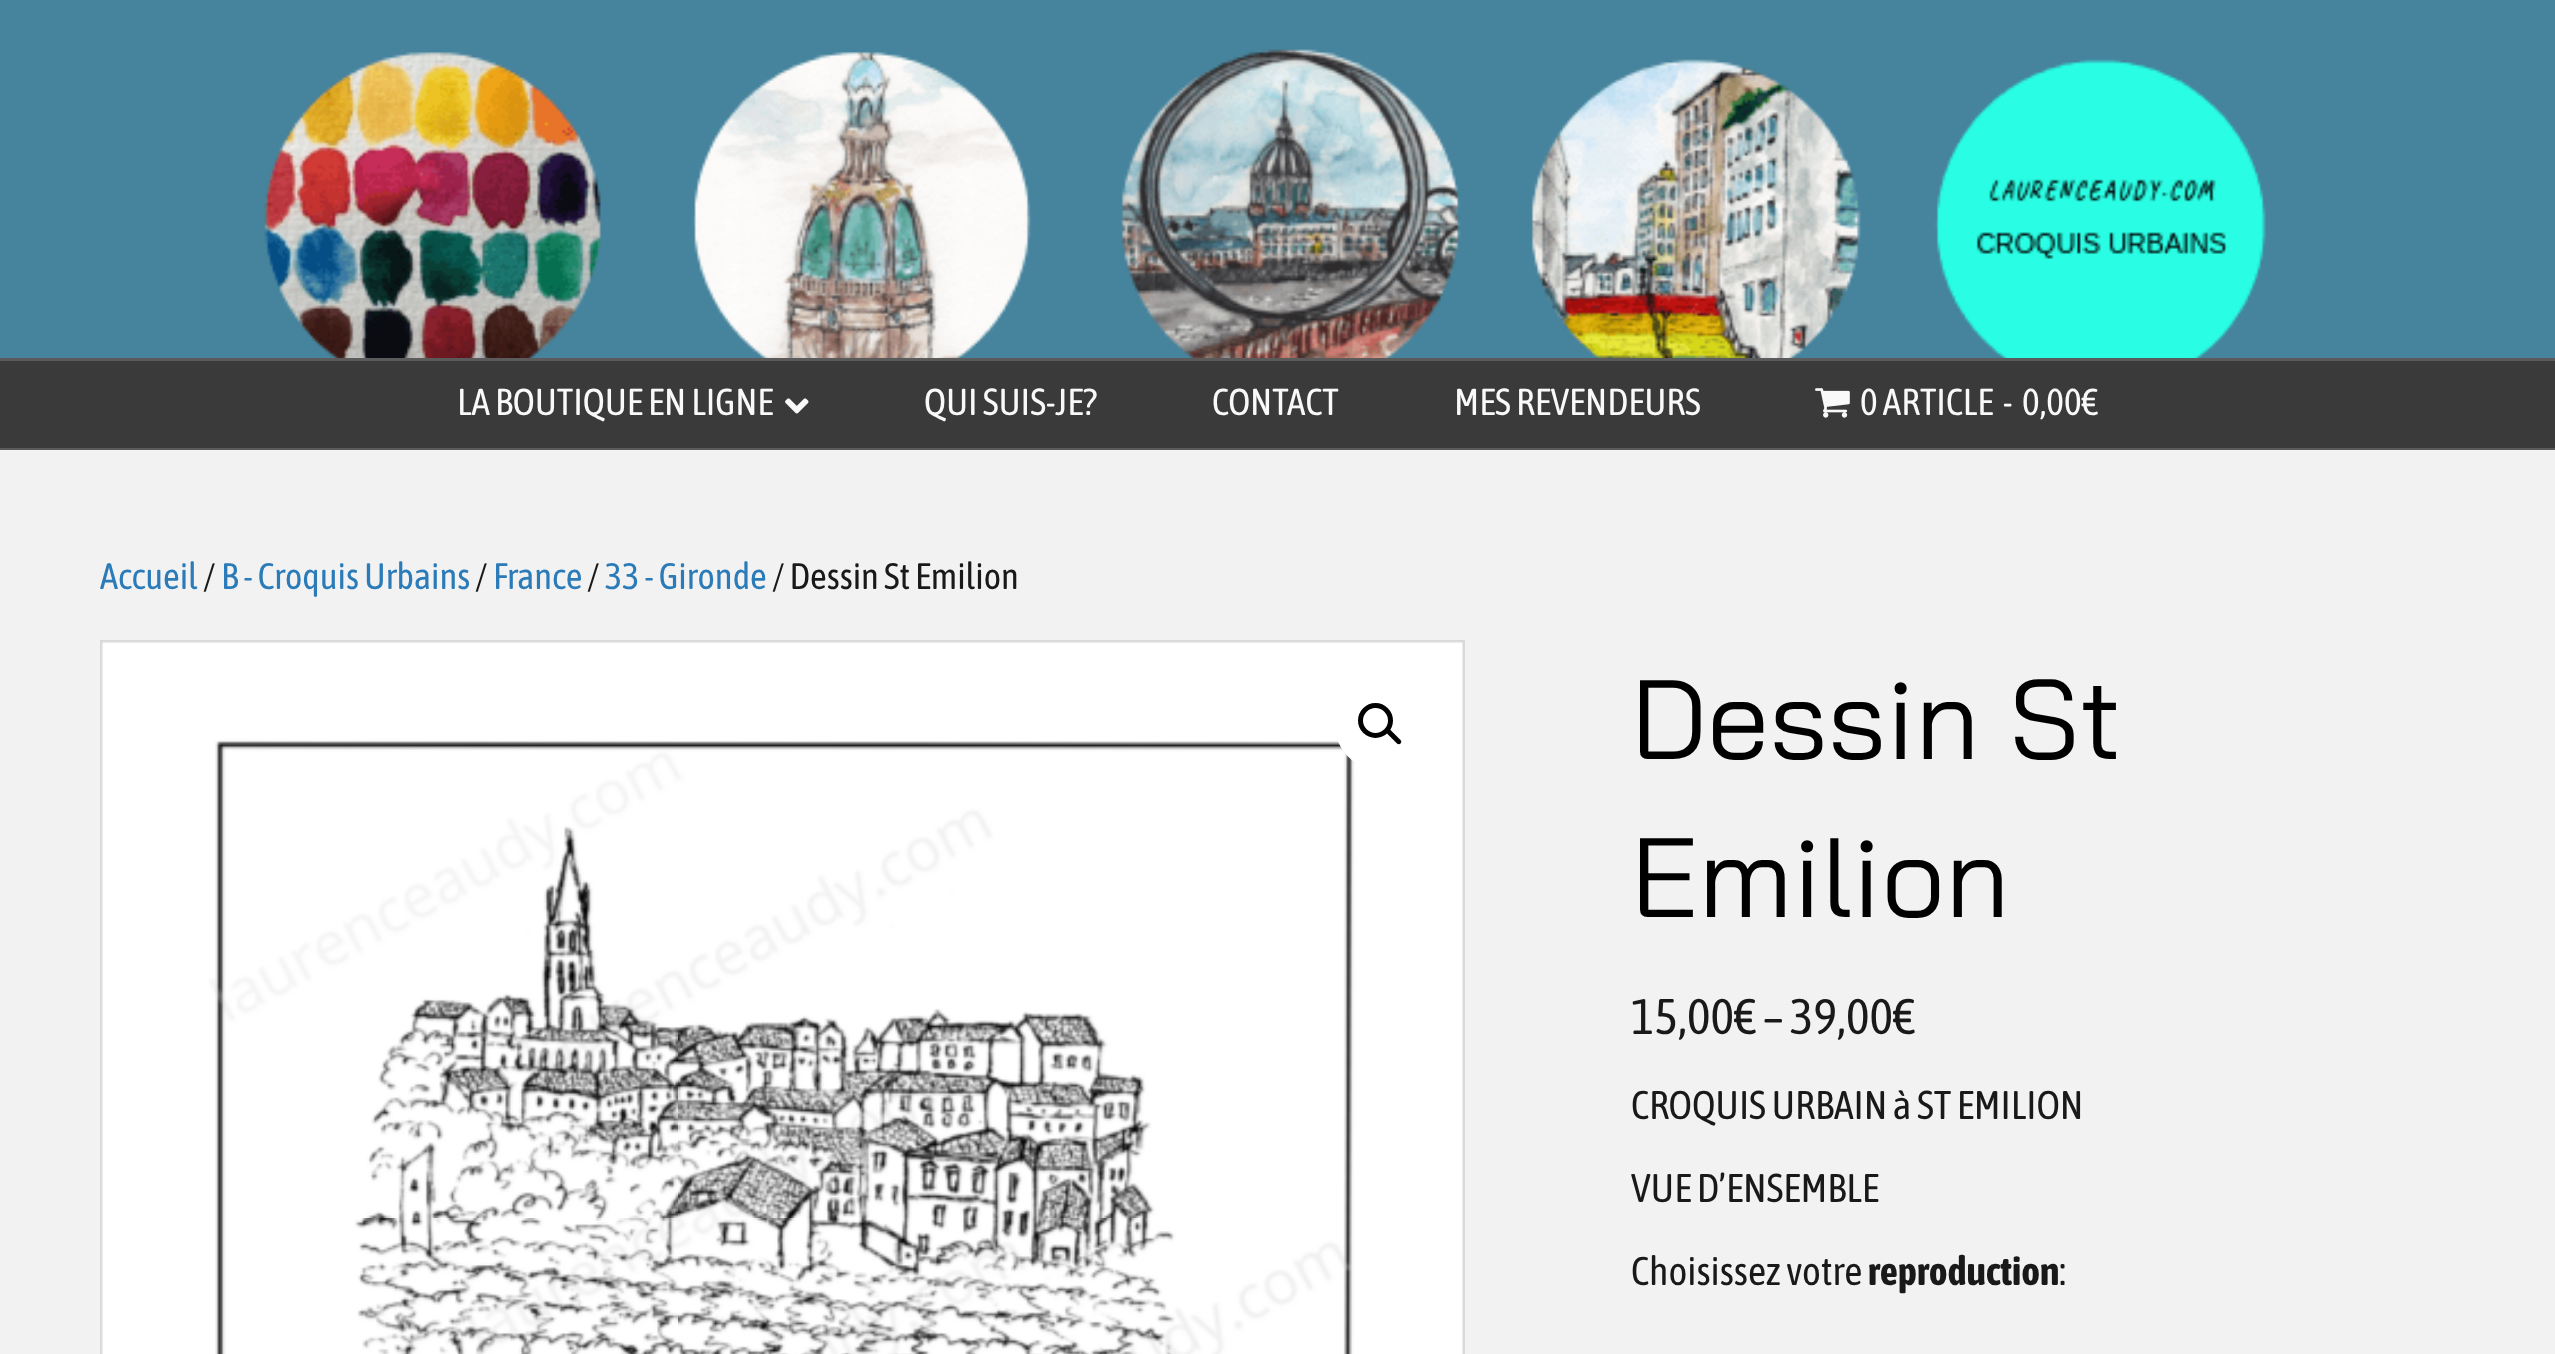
async function draw(canvas) {
  canvas.width = 2555;
  canvas.height = 1354;
  const ctx = canvas.getContext('2d');
  ctx.miterLimit = 4;
  ctx.fontKerning = 'normal';
  function label(s, x, y, font, color) {
    ctx.font = font;
    ctx.fillStyle = color;
    ctx.fillText(s, x, y);
  }
  function rect(x, y, w, h, color) {
    ctx.fillStyle = color;
    ctx.fillRect(x, y, w, h);
  }
  async function image(src, x, y, w, h) {
    const img = new Image();
    img.src = src;
    await img.decode();
    ctx.drawImage(img, x, y, w, h);
  }
  let path;

  rect(0, 0, 2555, 1354, '#46839d');
  await image('assets/img1.png', 264, 49, 2002, 309);
  rect(0, 361, 2555, 87, '#3a3a3a');
  rect(0, 358, 2555, 3, '#5b5b5b');
  rect(0, 448, 2555, 2, '#5b5b5b');
  label('LA BOUTIQUE EN LIGNE', 457, 415, '37.5px Asap Condensed', '#f9f9f9');
  await image('assets/img2.png', 785, 398, 24, 16);
  label('QUI SUIS-JE?', 924, 415, '37.5px Asap Condensed', '#f9f9f9');
  label('CONTACT', 1212, 415, '37.5px Asap Condensed', '#f9f9f9');
  label('MES REVENDEURS', 1454, 415, '37.5px Asap Condensed', '#f9f9f9');
  await image('assets/img3.png', 1815, 388, 35, 30);
  label('0 ARTICLE', 1860, 415, '37.5px Asap Condensed', '#f9f9f9');
  label('-', 2003, 415, '37.5px Asap Condensed', '#f9f9f9');
  label('0,00€', 2022, 415, '37.5px Asap Condensed', '#f9f9f9');
  rect(0, 450, 2555, 904, '#f2f2f2');
  label('Accueil', 100, 589, '36.75px Asap Condensed', '#2b7bb9');
  label('/', 203, 589, '36.75px Asap Condensed', '#191919');
  label('B - Croquis Urbains', 221, 589, '36.75px Asap Condensed', '#2b7bb9');
  label('/', 475, 589, '36.75px Asap Condensed', '#191919');
  label('France', 493, 589, '36.75px Asap Condensed', '#2b7bb9');
  label('/', 587, 589, '36.75px Asap Condensed', '#191919');
  label('33 - Gironde', 605, 589, '36.75px Asap Condensed', '#2b7bb9');
  label('/ Dessin St Emilion', 772, 589, '36.75px Asap Condensed', '#191919');
  ctx.strokeStyle = '#d9d9d9';
  ctx.lineWidth = 3;
  ctx.strokeRect(101.5, 641.5, 1362, 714);
  await image('assets/img4.png', 101, 641, 1362, 713);
  ctx.fillStyle = '#fff';
  ctx.beginPath();
  ctx.arc(1380, 725, 45, 0, 2 * Math.PI);
  ctx.fill();
  ctx.beginPath();
  ctx.arc(1375.5, 720.5, 15, 0, 2 * Math.PI);
  ctx.strokeStyle = '#000';
  ctx.lineWidth = 5;
  ctx.stroke();
  ctx.fillStyle = '#000';
  path = new Path2D('M1386.5 729.5C1387.5 728.5 1389 728.5 1390 729.5L1400.5 740C1401.5 741 1401.5 742.5 1400.5 743.5C1399.5 744.5 1398 744.5 1397 743.5L1386.5 733C1385.5 732 1385.5 730.5 1386.5 729.5Z');
  ctx.fill(path);
  label('Dessin St', 1631, 759, '112.5px Bai Jamjuree', '#000');
  label('Emilion', 1631, 917, '112.5px Bai Jamjuree', '#000');
  label('15,00€ – 39,00€', 1631, 1034, '50px Asap Condensed', '#191919');
  label('CROQUIS URBAIN à ST EMILION', 1631, 1119, '40px Asap Condensed', '#191919');
  label('VUE D’ENSEMBLE', 1631, 1202, '40px Asap Condensed', '#191919');
  label('Choisissez votre', 1631, 1285, '40px Asap Condensed', '#191919');
  label('reproduction', 1868, 1285, 'bold 40px Asap Condensed', '#191919');
  label(':', 2059, 1285, '40px Asap Condensed', '#191919');
}

draw(document.querySelector('canvas'));
